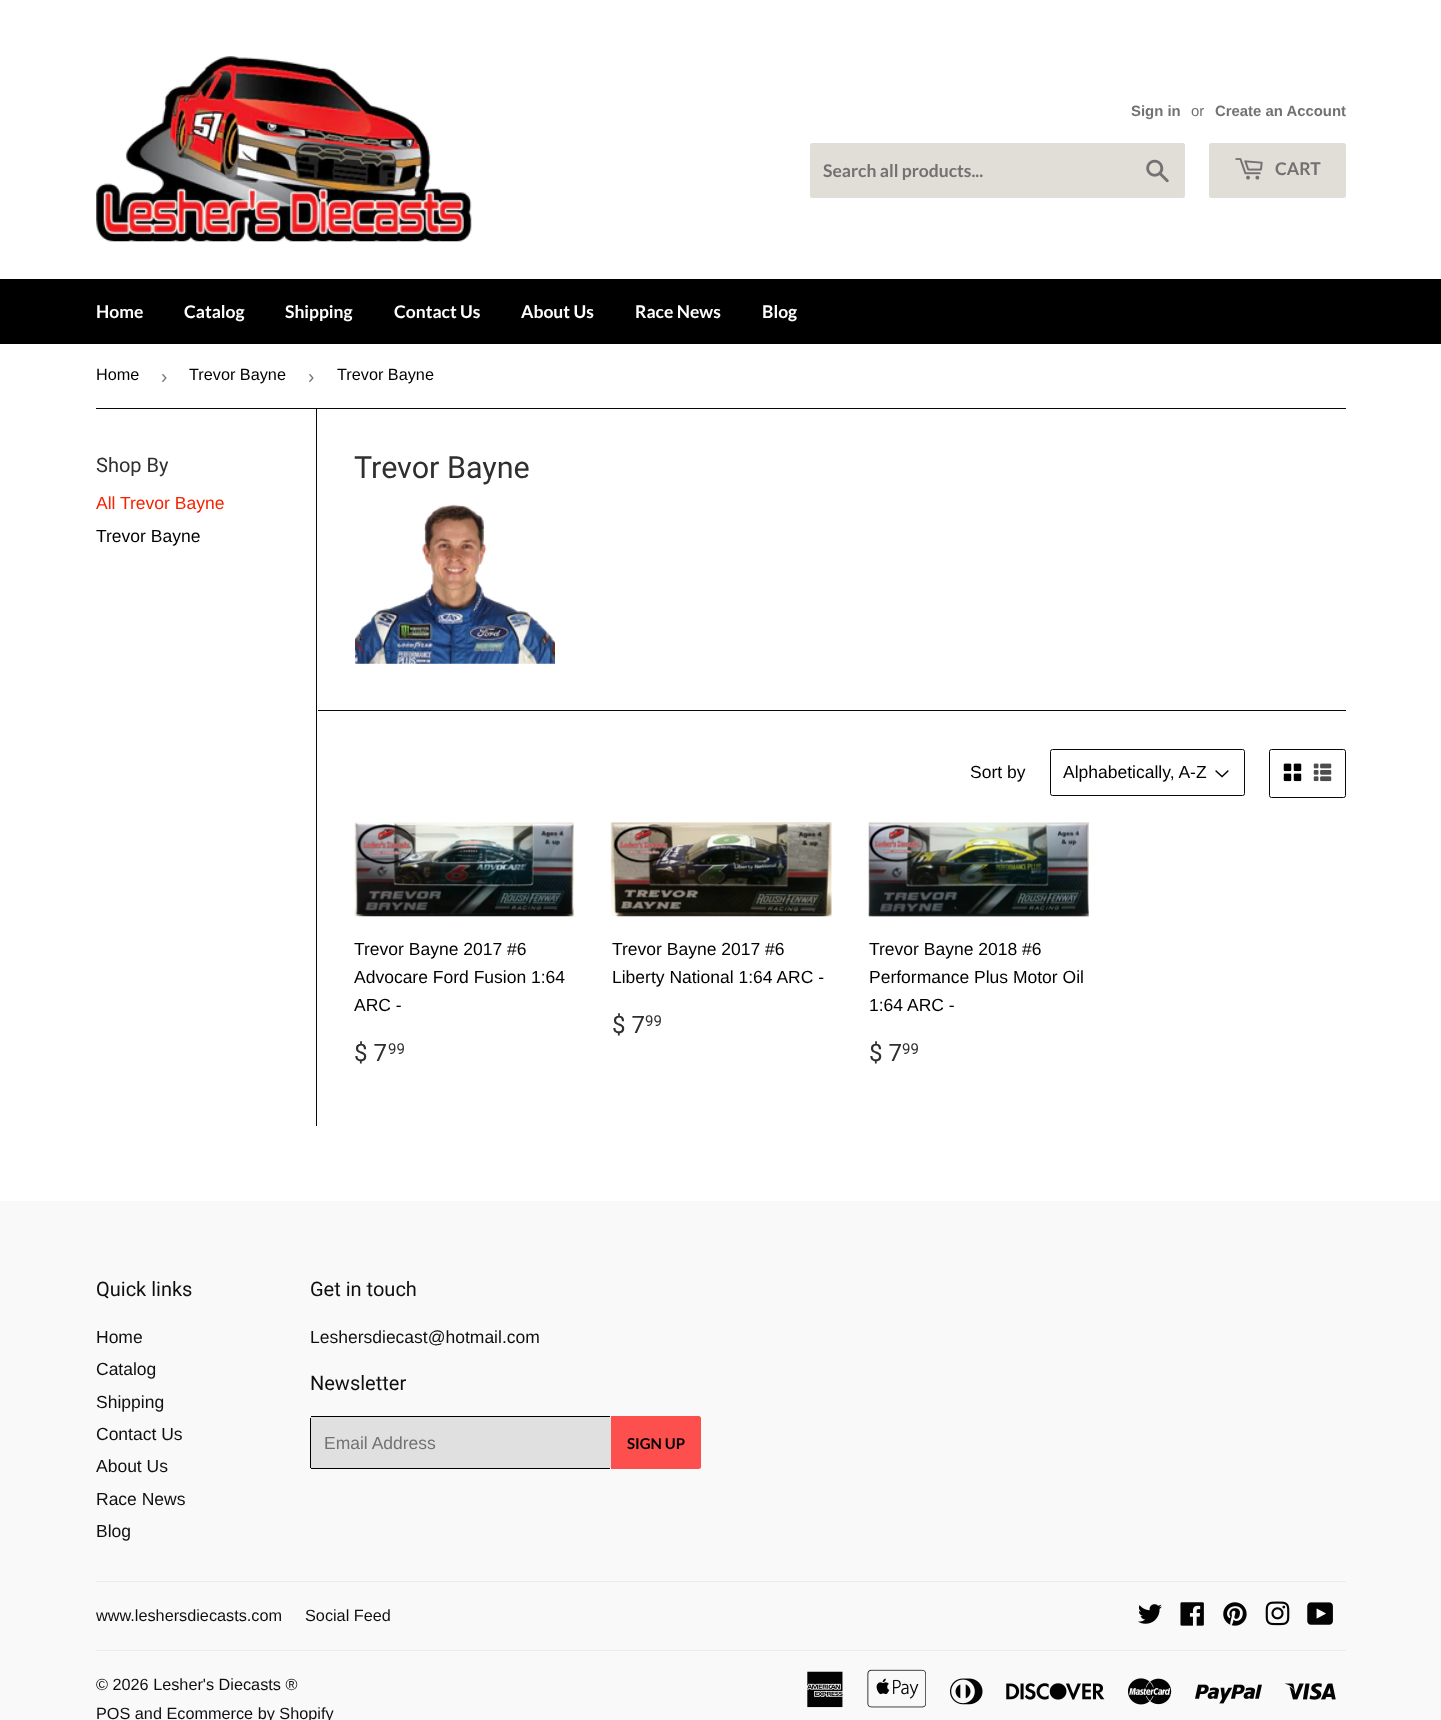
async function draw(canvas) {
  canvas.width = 1441;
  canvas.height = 1720;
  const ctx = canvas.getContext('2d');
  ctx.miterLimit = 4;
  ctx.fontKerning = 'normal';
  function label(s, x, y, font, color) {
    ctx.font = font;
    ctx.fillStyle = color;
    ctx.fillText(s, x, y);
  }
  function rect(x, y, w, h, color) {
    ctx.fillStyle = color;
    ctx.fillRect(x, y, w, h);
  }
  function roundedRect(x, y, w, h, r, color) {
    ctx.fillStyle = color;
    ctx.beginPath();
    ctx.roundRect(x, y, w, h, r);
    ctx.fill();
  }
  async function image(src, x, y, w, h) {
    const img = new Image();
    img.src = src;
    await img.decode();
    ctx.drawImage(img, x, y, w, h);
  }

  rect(0, 0, 1441, 1720, '#fff');
  await image('assets/img1.png', 96, 56, 376, 186);
  label('Sign in', 1131, 116, 'bold 14.9px Liberation Sans', '#727272');
  label('or', 1191, 116, '14.9px Liberation Sans', '#727272');
  label('Create an Account', 1215, 116, 'bold 14.9px Liberation Sans', '#727272');
  roundedRect(810, 143, 375, 55, 2.5, '#e1ddd7');
  label('Search all products...', 823, 177, 'bold 17.5px Lato', '#727272');
  await image('assets/img2.png', 1146, 159, 23, 24);
  roundedRect(1209, 143, 137, 55, 2.5, '#e1ddd7');
  await image('assets/img3.png', 1235, 158, 28, 22);
  label('CART', 1275, 175, 'bold 17.5px Lato', '#727272');
  rect(0, 279, 1441, 65, '#000');
  label('Home', 96, 318, 'bold 17.5px Lato', '#fff');
  label('Catalog', 184, 318, 'bold 17.5px Lato', '#fff');
  label('Shipping', 285, 318, 'bold 17.5px Lato', '#fff');
  label('Contact Us', 394, 318, 'bold 17.5px Lato', '#fff');
  label('About Us', 521, 318, 'bold 17.5px Lato', '#fff');
  label('Race News', 635, 318, 'bold 17.5px Lato', '#fff');
  label('Blog', 762, 318, 'bold 17.5px Lato', '#fff');
  rect(96, 408, 1250, 1, '#080808');
  label('Home', 96, 380, '16.25px Liberation Sans', '#000');
  label('›', 161, 383, '19px Liberation Sans', '#727272');
  label('Trevor Bayne', 189, 380, '16.25px Liberation Sans', '#000');
  label('›', 308, 383, '19px Liberation Sans', '#727272');
  label('Trevor Bayne', 337, 380, '16.25px Liberation Sans', '#000');
  label('Shop By', 96, 472, '20px Roboto', '#2f2f2f');
  label('All', 96, 509, '17.5px Liberation Sans', '#f72100');
  label('Trevor Bayne', 120, 509, '17.5px Liberation Sans', '#f72100');
  label('Trevor Bayne', 96, 542, '17.5px Liberation Sans', '#000');
  rect(316, 409, 1, 717, '#080808');
  label('Trevor Bayne', 354, 478, '30.5px Roboto', '#2f2f2f');
  await image('assets/img4.png', 355, 504, 200, 160);
  rect(318, 710, 1028, 1, '#080808');
  label('Sort by', 970, 778, '17.5px Liberation Sans', '#000');
  await image('assets/img5.png', 1215, 770, 14, 8);
  ctx.beginPath();
  ctx.roundRect(1050.5, 749.5, 194, 46, 2);
  ctx.strokeStyle = '#080808';
  ctx.stroke();
  label('Alphabetically, A-Z', 1063, 778, '17.5px Liberation Sans', '#000');
  ctx.beginPath();
  ctx.roundRect(1269.5, 749.5, 76, 48, 2);
  ctx.stroke();
  await image('assets/img6.png', 1283, 763, 19, 19);
  await image('assets/img7.png', 1313, 763, 19, 19);
  await image('assets/img8.png', 354, 822, 220, 95);
  label('Trevor Bayne 2017 #6', 354, 955, '17.5px Liberation Sans', '#000');
  label('Advocare Ford Fusion 1:64', 354, 983, '17.5px Liberation Sans', '#000');
  label('ARC -', 354, 1011, '17.5px Liberation Sans', '#000');
  label('$ 7', 354, 1061, '24px Roboto', '#2f2f2f');
  label('99', 388, 1054, '15px Roboto', '#2f2f2f');
  await image('assets/img9.png', 610, 822, 222, 95);
  label('Trevor Bayne 2017 #6', 612, 955, '17.5px Liberation Sans', '#000');
  label('Liberty National 1:64 ARC -', 612, 983, '17.5px Liberation Sans', '#000');
  label('$ 7', 612, 1033, '24px Roboto', '#2f2f2f');
  label('99', 645, 1026, '15px Roboto', '#2f2f2f');
  await image('assets/img10.png', 868, 822, 221, 95);
  label('Trevor Bayne 2018 #6', 869, 955, '17.5px Liberation Sans', '#000');
  label('Performance Plus Motor Oil', 869, 983, '17.5px Liberation Sans', '#000');
  label('1:64 ARC -', 869, 1011, '17.5px Liberation Sans', '#000');
  label('$ 7', 869, 1061, '24px Roboto', '#2f2f2f');
  label('99', 902, 1054, '15px Roboto', '#2f2f2f');
  rect(0, 1201, 1441, 519, '#f9f9f9');
  label('Quick links', 96, 1296, '20px Roboto', '#0f0f0f');
  label('Home', 96, 1343, '17.5px Liberation Sans', '#0f0f0f');
  label('Catalog', 96, 1375, '17.5px Liberation Sans', '#0f0f0f');
  label('Shipping', 96, 1408, '17.5px Liberation Sans', '#0f0f0f');
  label('Contact Us', 96, 1440, '17.5px Liberation Sans', '#0f0f0f');
  label('About Us', 96, 1472, '17.5px Liberation Sans', '#0f0f0f');
  label('Race News', 96, 1505, '17.5px Liberation Sans', '#0f0f0f');
  label('Blog', 96, 1537, '17.5px Liberation Sans', '#0f0f0f');
  label('Get in touch', 310, 1296, '20px Roboto', '#0f0f0f');
  label('Leshersdiecast@hotmail.com', 310, 1343, '17.5px Liberation Sans', '#0f0f0f');
  label('Newsletter', 310, 1390, '20px Roboto', '#0f0f0f');
  roundedRect(310, 1416, 301, 53, 2.5, '#e0e0e0');
  rect(311, 1416, 299, 1, '#000');
  rect(311, 1468, 299, 1, '#000');
  rect(310, 1418, 1, 50, '#000');
  label('Email Address', 324, 1449, '17.5px Liberation Sans', '#727272');
  ctx.fillStyle = '#fe4f4f';
  ctx.beginPath();
  ctx.roundRect(611, 1416, 90, 53, [0, 2.5, 2.5, 0]);
  ctx.fill();
  label('SIGN UP', 627, 1449, 'bold 15px Lato', '#000');
  rect(96, 1581, 1250, 1, '#ececec');
  label('www.leshersdiecasts.com', 96, 1621, '16.25px Liberation Sans', '#0f0f0f');
  label('Social Feed', 305, 1621, '16.25px Liberation Sans', '#0f0f0f');
  await image('assets/img11.png', 1138, 1604, 24, 20);
  await image('assets/img12.png', 1180, 1602, 24, 24);
  await image('assets/img13.png', 1223, 1602, 24, 24);
  await image('assets/img14.png', 1265, 1601, 25, 25);
  await image('assets/img15.png', 1307, 1602, 26, 23);
  rect(96, 1650, 1250, 1, '#ececec');
  label('© 2026 Lesher\'s Diecasts ®', 96, 1690, '16.25px Liberation Sans', '#0f0f0f');
  label('POS and Ecommerce by Shopify', 96, 1719, '16.25px Liberation Sans', '#0f0f0f');
  await image('assets/img16.png', 807, 1671, 36, 37);
  await image('assets/img17.png', 867, 1669, 59, 39);
  await image('assets/img18.png', 950, 1678, 33, 27);
  await image('assets/img19.png', 1006, 1683, 99, 17);
  await image('assets/img20.png', 1127, 1678, 45, 27);
  await image('assets/img21.png', 1195, 1684, 67, 20);
  await image('assets/img22.png', 1285, 1683, 51, 17);
}

draw(document.querySelector('canvas'));
